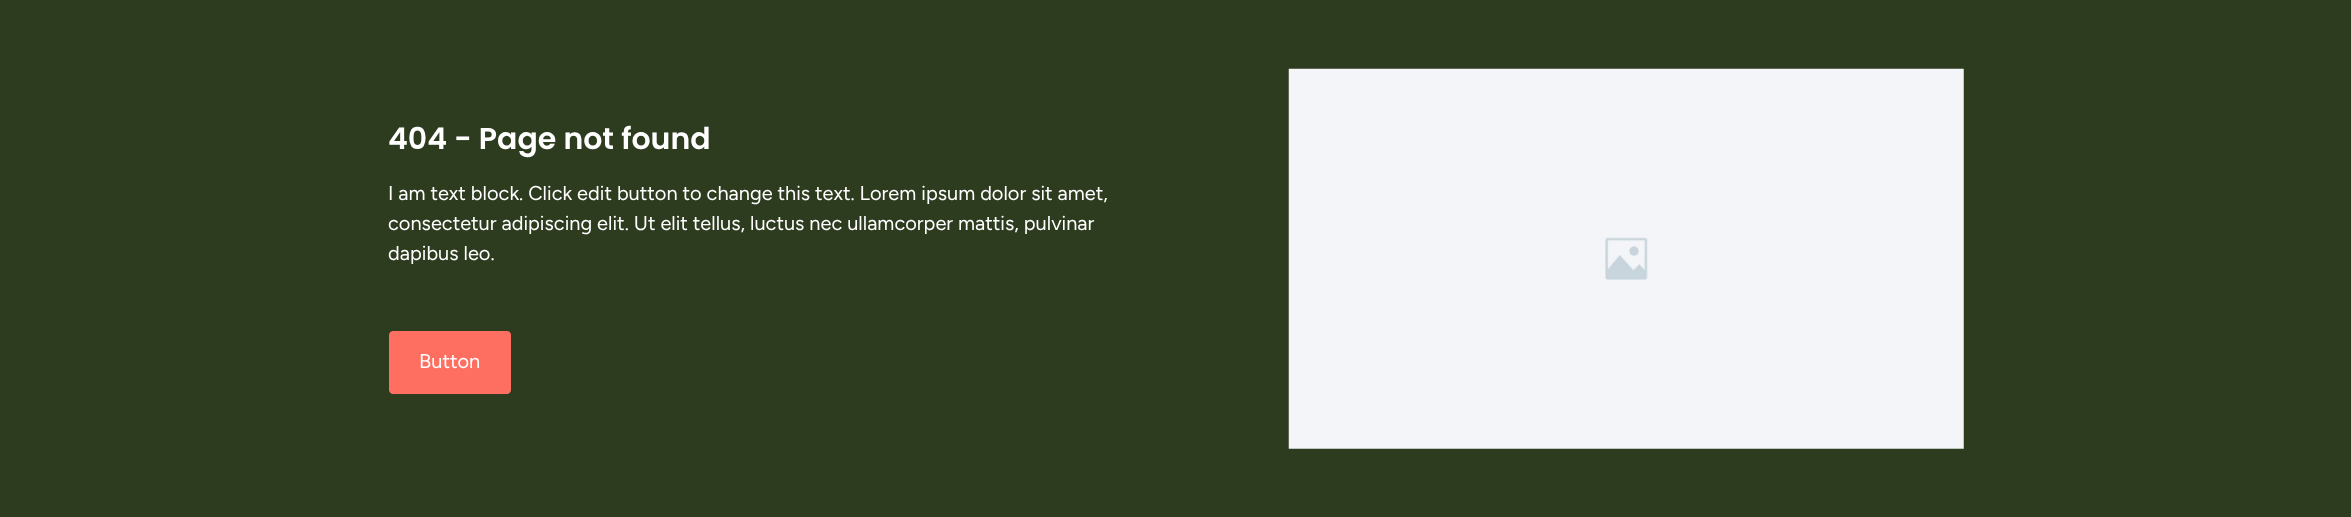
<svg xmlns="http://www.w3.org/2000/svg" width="2351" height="517">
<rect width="100%" height="100%" fill="#2d3b1f"/>
<text x="388" y="149" style="font-family:Poppins;font-size:30px;font-weight:600;fill:#fff">404 - Page not found</text>
<text x="388" y="200" style="font-family:Figtree;font-size:20px;fill:#fff">I am text block. Click edit button to change this text. Lorem ipsum dolor sit amet,</text>
<text x="388" y="230" style="font-family:Figtree;font-size:20px;fill:#fff">consectetur adipiscing elit. Ut elit tellus, luctus nec ullamcorper mattis, pulvinar</text>
<text x="388" y="260" style="font-family:Figtree;font-size:20px;fill:#fff">dapibus leo.</text>
<rect x="389.5" y="331.5" width="121" height="62" rx="3.5" fill="#ff6f61" stroke="#ff6f61"/>
<text x="419" y="368" style="font-family:Figtree;font-size:20px;fill:#fff">Button</text>
<image x="1288" y="68" width="676" height="381" href="media/1.png"/>
</svg>
